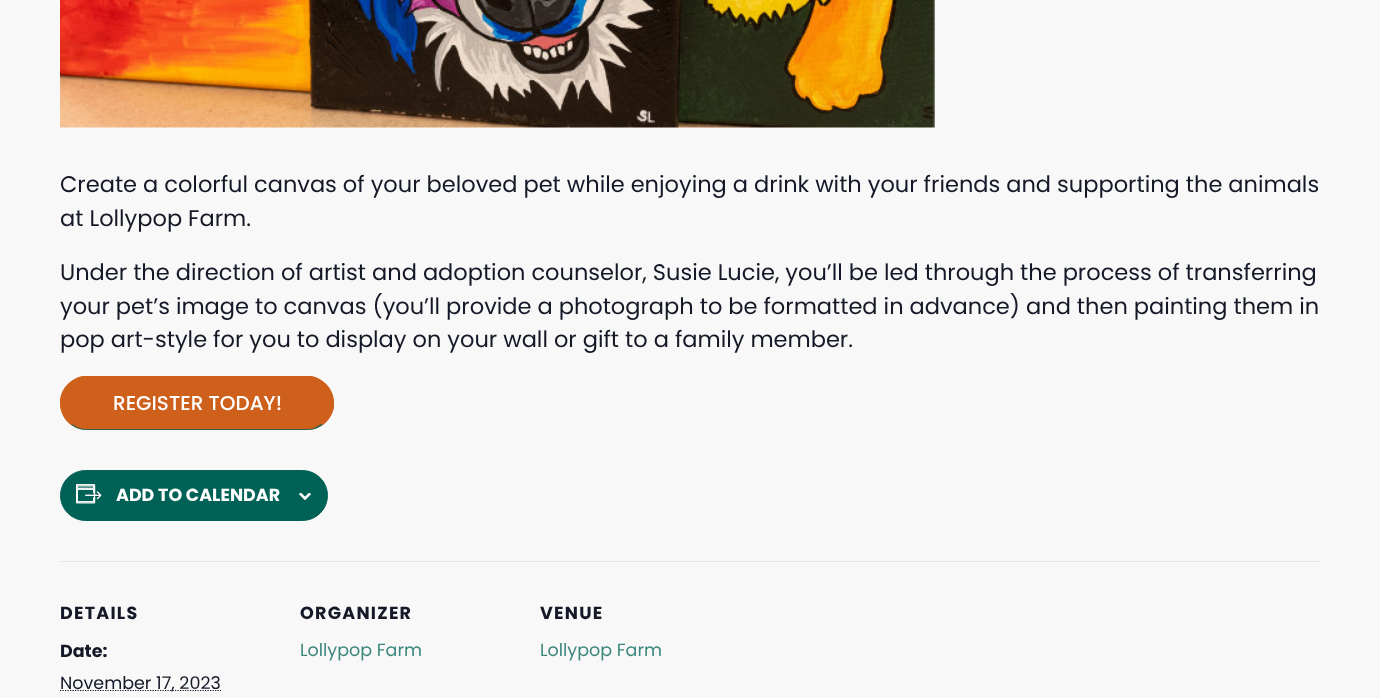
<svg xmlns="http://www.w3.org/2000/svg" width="1380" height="698">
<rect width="100%" height="100%" fill="#f8f8f8"/>
<image x="60" y="0" width="875" height="128" href="media/1.png"/>
<text x="60" y="192" style="font-family:Poppins;font-size:22.5px;fill:#141827">Create a colorful canvas of your beloved pet while enjoying a drink with your friends and supporting the animals</text>
<text x="60" y="226" style="font-family:Poppins;font-size:22.5px;fill:#141827">at Lollypop Farm.</text>
<text x="60" y="280" style="font-family:Poppins;font-size:22.5px;fill:#141827">Under the direction of artist and adoption counselor, Susie Lucie, you’ll be led through the process of transferring</text>
<text x="60" y="314" style="font-family:Poppins;font-size:22.5px;fill:#141827">your pet’s image to canvas (you’ll provide a photograph to be formatted in advance) and then painting them in</text>
<text x="60" y="347" style="font-family:Poppins;font-size:22.5px;fill:#141827">pop art-style for you to display on your wall or gift to a family member.</text>
<rect x="60" y="376" width="274" height="54" rx="27" fill="#ce601b"/>
<path d="M87 379c-7 0-13 3-17 7l-2-2c4-4 9-7 15-8h228c6 1 11 4 15 8l-2 2c-4-4-10-7-17-7z" fill="#ce601b"/>
<path d="M334 407c-1 7-5 13-11 18l-2-1c12-10 13-27 3-38l2-2c7 7 8 14 8 23z" fill="#ce601b"/>
<path d="M87 430h220c6 0 12-2 16-5l-2-1c-4 3-9 5-14 5h-220c-6 0-11-2-15-5l-1 1c4 3 10 5 16 5z" fill="#006156bf"/>
<path d="M71 425c-13-10-15-30-3-41l2 2c-12 10-10 29 2 38z" fill="#ce601b"/>
<text x="113" y="410" style="font-family:Poppins;font-size:20px;font-weight:500;fill:#fff">REGISTER TODAY!</text>
<rect x="60.5" y="470.5" width="267" height="50" rx="25" fill="#006156" stroke="#006156"/>
<image x="76" y="484" width="26" height="20" href="media/2.png"/>
<text x="116" y="501" style="font-family:Poppins;font-size:17.5px;font-weight:bold;fill:#fff">ADD TO CALENDAR</text>
<image x="299" y="493" width="12" height="7" href="media/3.png"/>
<rect x="60" y="561" width="1260" height="1" fill="#e4e4e4"/>
<text x="60" y="619" style="font-family:Poppins;font-size:17.5px;font-weight:bold;letter-spacing:1.25px;fill:#141827">DETAILS</text>
<text x="60" y="657" style="font-family:Poppins;font-size:17.5px;font-weight:bold;fill:#141827">Date:</text>
<path d="M60 690.5h161" fill="none" stroke="#141827" stroke-width="1.2" stroke-dasharray="1.25 1.25"/>
<text x="60" y="689" style="font-family:Poppins;font-size:17.5px;fill:#141827">November 17, 2023</text>
<text x="300" y="619" style="font-family:Poppins;font-size:17.5px;font-weight:bold;letter-spacing:1.25px;fill:#141827">ORGANIZER</text>
<text x="300" y="656" style="font-family:Poppins;font-size:17.5px;fill:#3e877f">Lollypop Farm</text>
<text x="540" y="619" style="font-family:Poppins;font-size:17.5px;font-weight:bold;letter-spacing:1.25px;fill:#141827">VENUE</text>
<text x="540" y="656" style="font-family:Poppins;font-size:17.5px;fill:#3e877f">Lollypop Farm</text>
</svg>
